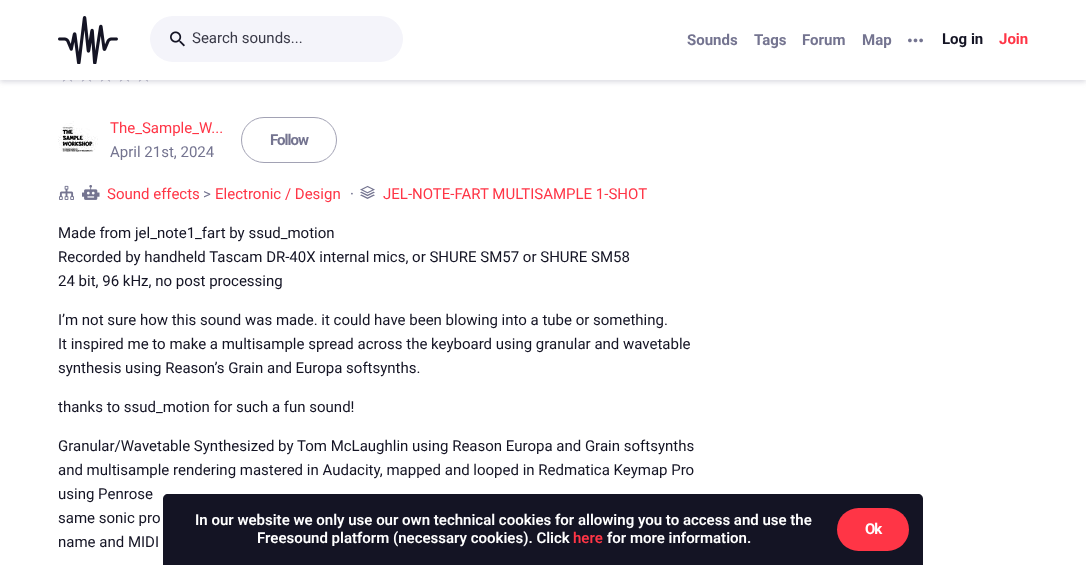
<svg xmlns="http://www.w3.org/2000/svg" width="1086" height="565">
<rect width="100%" height="100%" fill="#fff"/>
<image x="62" y="80" width="11" height="2" href="media/4.png"/>
<image x="81" y="80" width="11" height="2" href="media/4.png"/>
<image x="100" y="80" width="11" height="2" href="media/4.png"/>
<image x="119" y="80" width="11" height="2" href="media/4.png"/>
<image x="138" y="80" width="11" height="2" href="media/4.png"/>
<rect y="2" width="1086" height="80" fill="#a2a2b466" filter="blur(2.5px)"/>
<rect width="1086" height="80" fill="#fff"/>
<image x="58" y="16" width="60" height="48" href="media/1.png"/>
<rect x="150" y="16" width="253" height="46" rx="23" fill="#f4f4fa"/>
<image x="170" y="31" width="15" height="16" href="media/2.png"/>
<text x="192" y="43" style="font-family:Roboto;font-size:15px;fill:#393947">Search sounds...</text>
<text x="687" y="45" style="font-family:Roboto;font-size:15px;font-weight:bold;fill:#747490">Sounds</text>
<text x="754" y="45" style="font-family:Roboto;font-size:15px;font-weight:bold;fill:#747490">Tags</text>
<text x="802" y="45" style="font-family:Roboto;font-size:15px;font-weight:bold;fill:#747490">Forum</text>
<text x="862" y="45" style="font-family:Roboto;font-size:15px;font-weight:bold;fill:#747490">Map</text>
<image x="908" y="38" width="15" height="5" href="media/3.png"/>
<text x="942" y="44" style="font-family:Roboto;font-size:15px;font-weight:bold;fill:#141424">Log in</text>
<text x="999" y="44" style="font-family:Roboto;font-size:15px;font-weight:bold;fill:#ff3546">Join</text>
<image x="58" y="121" width="40" height="31" href="media/5.png"/>
<text x="110" y="133" style="font-family:Roboto;font-size:15px;fill:#ff3546">The_Sample_W...</text>
<text x="110" y="157" style="font-family:Roboto;font-size:15px;fill:#747490">April 21st, 2024</text>
<rect x="241.5" y="117.5" width="95" height="45" rx="22.5" fill="none" stroke="#a2a2b4"/>
<text x="270" y="145" style="font-family:Roboto;font-size:15px;font-weight:bold;letter-spacing:-1px;fill:#747490">Follow</text>
<image x="59" y="185" width="15" height="15" href="media/6.png"/>
<image x="82" y="185" width="18" height="15" href="media/7.png"/>
<text x="107" y="199" style="font-family:Roboto;font-size:15px;fill:#ff3546">Sound effects</text>
<text x="203" y="199" style="font-family:Roboto;font-size:15px;fill:#747490">&gt;</text>
<text x="215" y="199" style="font-family:Roboto;font-size:15px;fill:#ff3546">Electronic / Design</text>
<text x="350" y="199" style="font-family:Roboto;font-size:15px;fill:#747490">·</text>
<image x="360" y="185" width="15" height="14" href="media/8.png"/>
<text x="383" y="199" style="font-family:Roboto;font-size:15px;fill:#ff3546">JEL-NOTE-FART MULTISAMPLE 1-SHOT</text>
<text x="58" y="238" style="font-family:Roboto;font-size:15px;fill:#141424">Made from jel_note1_fart by ssud_motion</text>
<text x="58" y="262" style="font-family:Roboto;font-size:15px;fill:#141424">Recorded by handheld Tascam DR-40X internal mics, or SHURE SM57 or SHURE SM58</text>
<text x="58" y="286" style="font-family:Roboto;font-size:15px;fill:#141424">24 bit, 96 kHz, no post processing</text>
<text x="58" y="325" style="font-family:Roboto;font-size:15px;fill:#141424">I’m not sure how this sound was made. it could have been blowing into a tube or something.</text>
<text x="58" y="349" style="font-family:Roboto;font-size:15px;fill:#141424">It inspired me to make a multisample spread across the keyboard using granular and wavetable</text>
<text x="58" y="373" style="font-family:Roboto;font-size:15px;fill:#141424">synthesis using Reason’s Grain and Europa softsynths.</text>
<text x="58" y="412" style="font-family:Roboto;font-size:15px;fill:#141424">thanks to ssud_motion for such a fun sound!</text>
<text x="58" y="451" style="font-family:Roboto;font-size:15px;fill:#141424">Granular/Wavetable Synthesized by Tom McLaughlin using Reason Europa and Grain softsynths</text>
<text x="58" y="475" style="font-family:Roboto;font-size:15px;fill:#141424">and multisample rendering mastered in Audacity, mapped and looped in Redmatica Keymap Pro</text>
<text x="58" y="499" style="font-family:Roboto;font-size:15px;fill:#141424">using Penrose</text>
<text x="58" y="523" style="font-family:Roboto;font-size:15px;fill:#141424">same sonic pro</text>
<text x="58" y="547" style="font-family:Roboto;font-size:15px;fill:#141424">name and MIDI</text>
<path d="M168 494h750c3 0 5 2 5 5v66h-760v-66c0-3 2-5 5-5z" fill="#141424"/>
<text x="195" y="525" style="font-family:Roboto;font-size:15px;font-weight:600;fill:#fff">In our website we only use our own technical cookies for allowing you to access and use the</text>
<text x="257" y="543" style="font-family:Roboto;font-size:15px;font-weight:600;fill:#fff">Freesound platform (necessary cookies). Click</text>
<text x="573" y="543" style="font-family:Roboto;font-size:15px;font-weight:600;fill:#ff3546">here</text>
<text x="607" y="543" style="font-family:Roboto;font-size:15px;font-weight:600;fill:#fff">for more information.</text>
<rect x="837" y="508" width="72" height="43" rx="21.5" fill="#ff3546"/>
<text x="865" y="534" style="font-family:Roboto;font-size:15px;font-weight:bold;letter-spacing:-1px;fill:#fff">Ok</text>
</svg>
